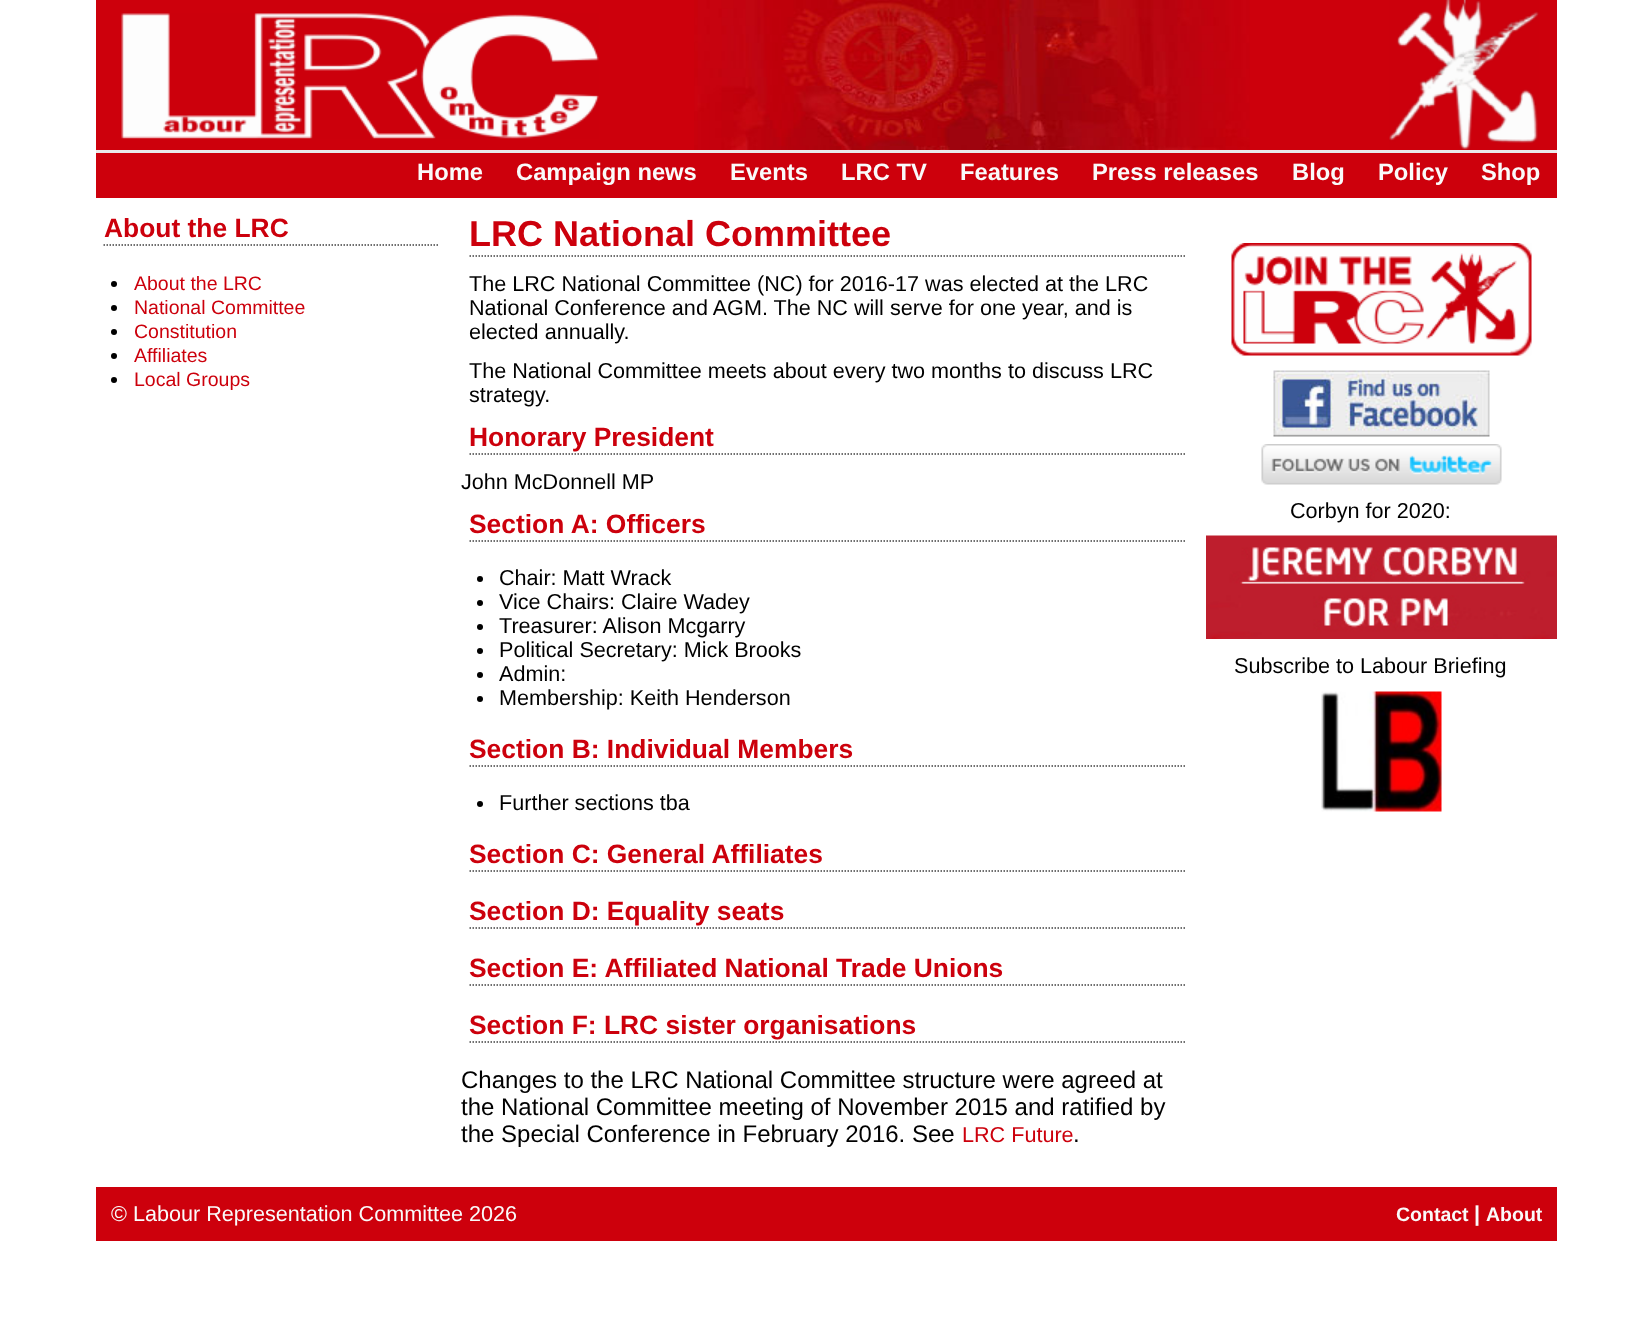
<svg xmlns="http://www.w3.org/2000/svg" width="1652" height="1326">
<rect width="100%" height="100%" fill="#fff"/>
<rect x="96" width="1461" height="198" fill="#cd000c"/>
<image x="121" y="13" width="478" height="126" href="media/1.png"/>
<image x="694" y="0" width="556" height="150" href="media/2.png"/>
<image x="1389" y="0" width="150" height="150" href="media/3.png"/>
<rect x="96" y="150" width="1461" height="3" fill="#eaeaea"/>
<text x="417" y="180" style="font-family:Liberation Sans;font-size:23.75px;font-weight:bold;fill:#fafafa">Home</text>
<text x="516" y="180" style="font-family:Liberation Sans;font-size:23.75px;font-weight:bold;fill:#fafafa">Campaign news</text>
<text x="730" y="180" style="font-family:Liberation Sans;font-size:23.75px;font-weight:bold;fill:#fafafa">Events</text>
<text x="841" y="180" style="font-family:Liberation Sans;font-size:23.75px;font-weight:bold;fill:#fafafa">LRC TV</text>
<text x="960" y="180" style="font-family:Liberation Sans;font-size:23.75px;font-weight:bold;fill:#fafafa">Features</text>
<text x="1092" y="180" style="font-family:Liberation Sans;font-size:23.75px;font-weight:bold;fill:#fafafa">Press releases</text>
<text x="1292" y="180" style="font-family:Liberation Sans;font-size:23.75px;font-weight:bold;fill:#fafafa">Blog</text>
<text x="1378" y="180" style="font-family:Liberation Sans;font-size:23.75px;font-weight:bold;fill:#fafafa">Policy</text>
<text x="1481" y="180" style="font-family:Liberation Sans;font-size:23.75px;font-weight:bold;fill:#fafafa">Shop</text>
<path d="M103.5 245h336" fill="none" stroke="#404040" stroke-width="1.5" stroke-dasharray="1.5 1.5"/>
<text x="104" y="237" style="font-family:Liberation Sans;font-size:26.4px;font-weight:bold;fill:#cc000c">About the LRC</text>
<circle cx="114" cy="284" r="3" fill="#000"/>
<text x="134" y="290" style="font-family:Liberation Sans;font-size:19.5px;fill:#cc000c">About the LRC</text>
<circle cx="114" cy="308" r="3" fill="#000"/>
<text x="134" y="314" style="font-family:Liberation Sans;font-size:19.5px;fill:#cc000c">National Committee</text>
<circle cx="114" cy="332" r="3" fill="#000"/>
<text x="134" y="338" style="font-family:Liberation Sans;font-size:19.5px;fill:#cc000c">Constitution</text>
<circle cx="114" cy="356" r="3" fill="#000"/>
<text x="134" y="362" style="font-family:Liberation Sans;font-size:19.5px;fill:#cc000c">Affiliates</text>
<circle cx="114" cy="380" r="3" fill="#000"/>
<text x="134" y="386" style="font-family:Liberation Sans;font-size:19.5px;fill:#cc000c">Local Groups</text>
<path d="M469.5 256h715.5" fill="none" stroke="#404040" stroke-width="1.5" stroke-dasharray="1.5 1.5"/>
<text x="469" y="246" style="font-family:Liberation Sans;font-size:36px;font-weight:bold;fill:#cc000c">LRC National Committee</text>
<text x="469" y="291" style="font-family:Liberation Sans;font-size:21.6px;fill:#000">The LRC National Committee (NC) for 2016-17 was elected at the LRC</text>
<text x="469" y="315" style="font-family:Liberation Sans;font-size:21.6px;fill:#000">National Conference and AGM. The NC will serve for one year, and is</text>
<text x="469" y="339" style="font-family:Liberation Sans;font-size:21.6px;fill:#000">elected annually.</text>
<text x="469" y="378" style="font-family:Liberation Sans;font-size:21.6px;fill:#000">The National Committee meets about every two months to discuss LRC</text>
<text x="469" y="402" style="font-family:Liberation Sans;font-size:21.6px;fill:#000">strategy.</text>
<path d="M469.5 454h715.5" fill="none" stroke="#404040" stroke-width="1.5" stroke-dasharray="1.5 1.5"/>
<text x="469" y="446" style="font-family:Liberation Sans;font-size:26.4px;font-weight:bold;fill:#cc000c">Honorary President</text>
<text x="461" y="489" style="font-family:Liberation Sans;font-size:21.6px;fill:#000">John McDonnell MP</text>
<path d="M469.5 541h715.5" fill="none" stroke="#404040" stroke-width="1.5" stroke-dasharray="1.5 1.5"/>
<text x="469" y="533" style="font-family:Liberation Sans;font-size:26.4px;font-weight:bold;fill:#cc000c">Section A: Officers</text>
<circle cx="480" cy="579" r="3" fill="#000"/>
<text x="499" y="585" style="font-family:Liberation Sans;font-size:21.6px;fill:#000">Chair: Matt Wrack</text>
<circle cx="480" cy="603" r="3" fill="#000"/>
<text x="499" y="609" style="font-family:Liberation Sans;font-size:21.6px;fill:#000">Vice Chairs: Claire Wadey</text>
<circle cx="480" cy="627" r="3" fill="#000"/>
<text x="499" y="633" style="font-family:Liberation Sans;font-size:21.6px;fill:#000">Treasurer: Alison Mcgarry</text>
<circle cx="480" cy="651" r="3" fill="#000"/>
<text x="499" y="657" style="font-family:Liberation Sans;font-size:21.6px;fill:#000">Political Secretary: Mick Brooks</text>
<circle cx="480" cy="675" r="3" fill="#000"/>
<text x="499" y="681" style="font-family:Liberation Sans;font-size:21.6px;fill:#000">Admin:</text>
<circle cx="480" cy="699" r="3" fill="#000"/>
<text x="499" y="705" style="font-family:Liberation Sans;font-size:21.6px;fill:#000">Membership: Keith Henderson</text>
<path d="M469.5 766h715.5" fill="none" stroke="#404040" stroke-width="1.5" stroke-dasharray="1.5 1.5"/>
<text x="469" y="758" style="font-family:Liberation Sans;font-size:26.4px;font-weight:bold;fill:#cc000c">Section B: Individual Members</text>
<circle cx="480" cy="804" r="3" fill="#000"/>
<text x="499" y="810" style="font-family:Liberation Sans;font-size:21.6px;fill:#000">Further sections tba</text>
<path d="M469.5 871h715.5" fill="none" stroke="#404040" stroke-width="1.5" stroke-dasharray="1.5 1.5"/>
<text x="469" y="863" style="font-family:Liberation Sans;font-size:26.4px;font-weight:bold;fill:#cc000c">Section C: General Affiliates</text>
<path d="M469.5 928h715.5" fill="none" stroke="#404040" stroke-width="1.5" stroke-dasharray="1.5 1.5"/>
<text x="469" y="920" style="font-family:Liberation Sans;font-size:26.4px;font-weight:bold;fill:#cc000c">Section D: Equality seats</text>
<path d="M469.5 985h715.5" fill="none" stroke="#404040" stroke-width="1.5" stroke-dasharray="1.5 1.5"/>
<text x="469" y="977" style="font-family:Liberation Sans;font-size:26.4px;font-weight:bold;fill:#cc000c">Section E: Affiliated National Trade Unions</text>
<path d="M469.5 1042h715.5" fill="none" stroke="#404040" stroke-width="1.5" stroke-dasharray="1.5 1.5"/>
<text x="469" y="1034" style="font-family:Liberation Sans;font-size:26.4px;font-weight:bold;fill:#cc000c">Section F: LRC sister organisations</text>
<text x="461" y="1088" style="font-family:Liberation Sans;font-size:24px;fill:#000">Changes to the LRC National Committee structure were agreed at</text>
<text x="461" y="1115" style="font-family:Liberation Sans;font-size:24px;fill:#000">the National Committee meeting of November 2015 and ratified by</text>
<text x="461" y="1142" style="font-family:Liberation Sans;font-size:24px;fill:#000">the Special Conference in February 2016. See</text>
<text x="962" y="1142" style="font-family:Liberation Sans;font-size:21.6px;fill:#cc000c">LRC Future</text>
<text x="1073" y="1142" style="font-family:Liberation Sans;font-size:24px;fill:#000">.</text>
<image x="1231" y="243" width="301" height="113" href="media/4.png"/>
<image x="1273" y="370" width="217" height="67" href="media/5.png"/>
<image x="1261" y="444" width="241" height="41" href="media/6.png"/>
<text x="1290" y="518" style="font-family:Liberation Sans;font-size:21.6px;fill:#000">Corbyn for 2020:</text>
<image x="1206" y="535" width="351" height="104" href="media/7.png"/>
<text x="1234" y="673" style="font-family:Liberation Sans;font-size:21.6px;fill:#000">Subscribe to Labour Briefing</text>
<image x="1321" y="691" width="121" height="121" href="media/8.png"/>
<rect x="96" y="1187" width="1461" height="54" fill="#cd000c"/>
<text x="111" y="1221" style="font-family:Liberation Sans;font-size:21.6px;fill:#fafafa">© Labour Representation Committee 2026</text>
<text x="1396" y="1221" style="font-family:Liberation Sans;font-size:19.5px;font-weight:bold;fill:#fafafa">Contact</text>
<text x="1474" y="1221" style="font-family:Liberation Sans;font-size:21.6px;font-weight:bold;fill:#fafafa">|</text>
<text x="1486" y="1221" style="font-family:Liberation Sans;font-size:19.5px;font-weight:bold;fill:#fafafa">About</text>
</svg>
